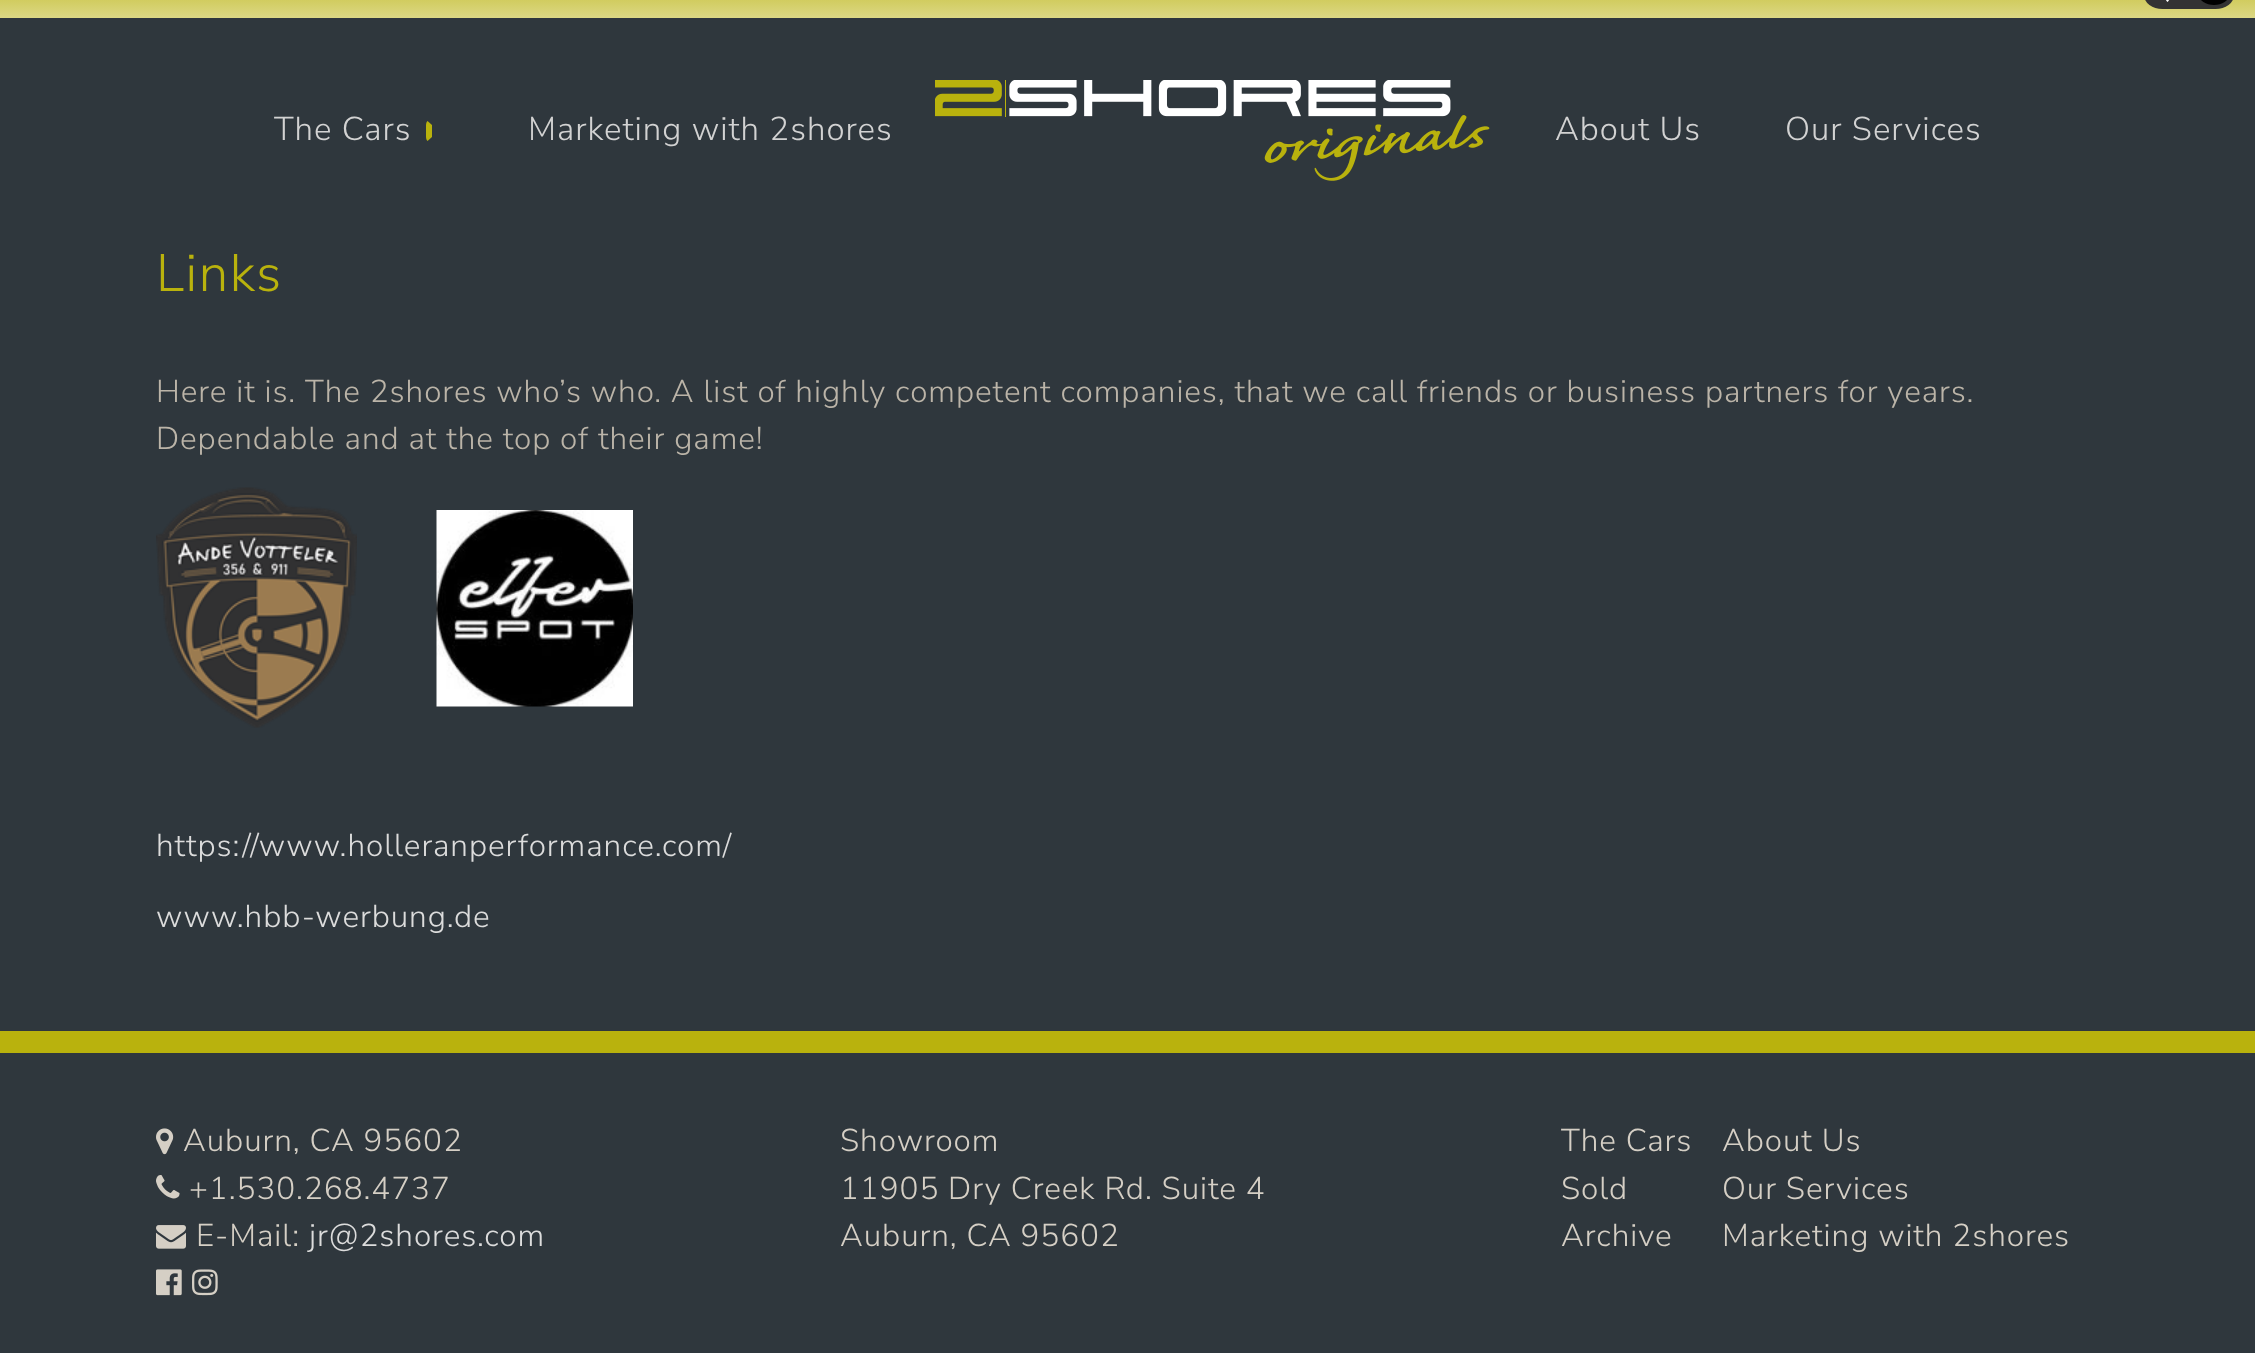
<svg xmlns="http://www.w3.org/2000/svg" width="2255" height="1353">
<defs>
<linearGradient id="g1" gradientUnits="userSpaceOnUse" x1="1128" y1="-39" x2="1128" y2="18"><stop offset="0" stop-color="#b9b20d"/><stop offset="1" stop-color="#dcd885"/></linearGradient>
</defs>
<rect width="100%" height="100%" fill="#2f373d"/>
<rect width="2255" height="18" fill="url(#g1)"/>
<rect x="2144" y="-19" width="90" height="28" rx="18.5" fill="#333"/>
<image x="2166" y="0" width="3" height="2" href="media/1.png"/>
<rect x="2199" y="-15" width="30" height="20" rx="15" fill="#000"/>
<text x="274" y="140" style="font-family:Nunito Sans;font-size:33px;font-weight:200;letter-spacing:1px;fill:#d2d2d2">The Cars</text>
<path d="M426 137v-12c0-1.5 .5-3 1.5-4l4.5 4v12l-4.5 4c-1-1-1.5-2.5-1.5-4z" fill="#b9b20d"/>
<text x="528" y="140" style="font-family:Nunito Sans;font-size:33px;font-weight:200;letter-spacing:1px;fill:#d2d2d2">Marketing with 2shores</text>
<image x="935" y="80" width="555" height="101" href="media/2.png"/>
<text x="1555" y="140" style="font-family:Nunito Sans;font-size:33px;font-weight:200;letter-spacing:1px;fill:#d2d2d2">About Us</text>
<text x="1785" y="140" style="font-family:Nunito Sans;font-size:33px;font-weight:200;letter-spacing:1px;fill:#d2d2d2">Our Services</text>
<text x="156" y="291" style="font-family:Nunito Sans;font-size:52.5px;font-weight:200;letter-spacing:1.5px;fill:#b9b20d">Links</text>
<text x="156" y="402" style="font-family:Nunito Sans;font-size:31.5px;font-weight:200;letter-spacing:0.95px;fill:#bbb4a8">Here it is. The 2shores who’s who. A list of highly competent companies, that we call friends or business partners for years.</text>
<text x="156" y="449" style="font-family:Nunito Sans;font-size:31.5px;font-weight:200;letter-spacing:0.95px;fill:#bbb4a8">Dependable and at the top of their game!</text>
<image x="156" y="487" width="201" height="241" href="media/3.png"/>
<image x="436" y="510" width="197" height="197" href="media/4.png"/>
<text x="156" y="856" style="font-family:Nunito Sans;font-size:31.5px;font-weight:200;letter-spacing:0.95px;fill:#dcdcdc">https://www.holleranperformance.com/</text>
<text x="156" y="927" style="font-family:Nunito Sans;font-size:31.5px;font-weight:200;letter-spacing:0.95px;fill:#dcdcdc">www.hbb-werbung.de</text>
<rect y="1031" width="2255" height="22" fill="#b9b20d"/>
<image x="156" y="1128" width="18" height="27" href="media/5.png"/>
<text x="183" y="1151" style="font-family:Nunito Sans;font-size:31.5px;font-weight:200;letter-spacing:0.95px;fill:#d5cfc5">Auburn, CA 95602</text>
<image x="156" y="1175" width="24" height="24" href="media/6.png"/>
<text x="189" y="1199" style="font-family:Nunito Sans;font-size:31.5px;font-weight:200;letter-spacing:0.95px;fill:#d5cfc5">+1.530.268.4737</text>
<image x="156" y="1225" width="30" height="24" href="media/7.png"/>
<text x="196" y="1246" style="font-family:Nunito Sans;font-size:31.5px;font-weight:200;letter-spacing:0.95px;fill:#d5cfc5">E-Mail:</text>
<text x="309" y="1246" style="font-family:Nunito Sans;font-size:31.5px;font-weight:200;letter-spacing:0.95px;fill:#dcdcdc">jr@2shores.com</text>
<image x="156" y="1269" width="26" height="27" href="media/8.png"/>
<image x="192" y="1269" width="26" height="27" href="media/9.png"/>
<text x="840" y="1151" style="font-family:Nunito Sans;font-size:31.5px;font-weight:200;letter-spacing:0.95px;fill:#d5cfc5">Showroom</text>
<text x="840" y="1199" style="font-family:Nunito Sans;font-size:31.5px;font-weight:200;letter-spacing:0.95px;fill:#d5cfc5">11905 Dry Creek Rd. Suite 4</text>
<text x="840" y="1246" style="font-family:Nunito Sans;font-size:31.5px;font-weight:200;letter-spacing:0.95px;fill:#d5cfc5">Auburn, CA 95602</text>
<text x="1561" y="1151" style="font-family:Nunito Sans;font-size:31.5px;font-weight:200;letter-spacing:0.95px;fill:#d5cfc5">The Cars</text>
<text x="1722" y="1151" style="font-family:Nunito Sans;font-size:31.5px;font-weight:200;letter-spacing:0.95px;fill:#d5cfc5">About Us</text>
<text x="1561" y="1199" style="font-family:Nunito Sans;font-size:31.5px;font-weight:200;letter-spacing:0.95px;fill:#d5cfc5">Sold</text>
<text x="1722" y="1199" style="font-family:Nunito Sans;font-size:31.5px;font-weight:200;letter-spacing:0.95px;fill:#d5cfc5">Our Services</text>
<text x="1561" y="1246" style="font-family:Nunito Sans;font-size:31.5px;font-weight:200;letter-spacing:0.95px;fill:#d5cfc5">Archive</text>
<text x="1722" y="1246" style="font-family:Nunito Sans;font-size:31.5px;font-weight:200;letter-spacing:0.95px;fill:#d5cfc5">Marketing with 2shores</text>
</svg>
